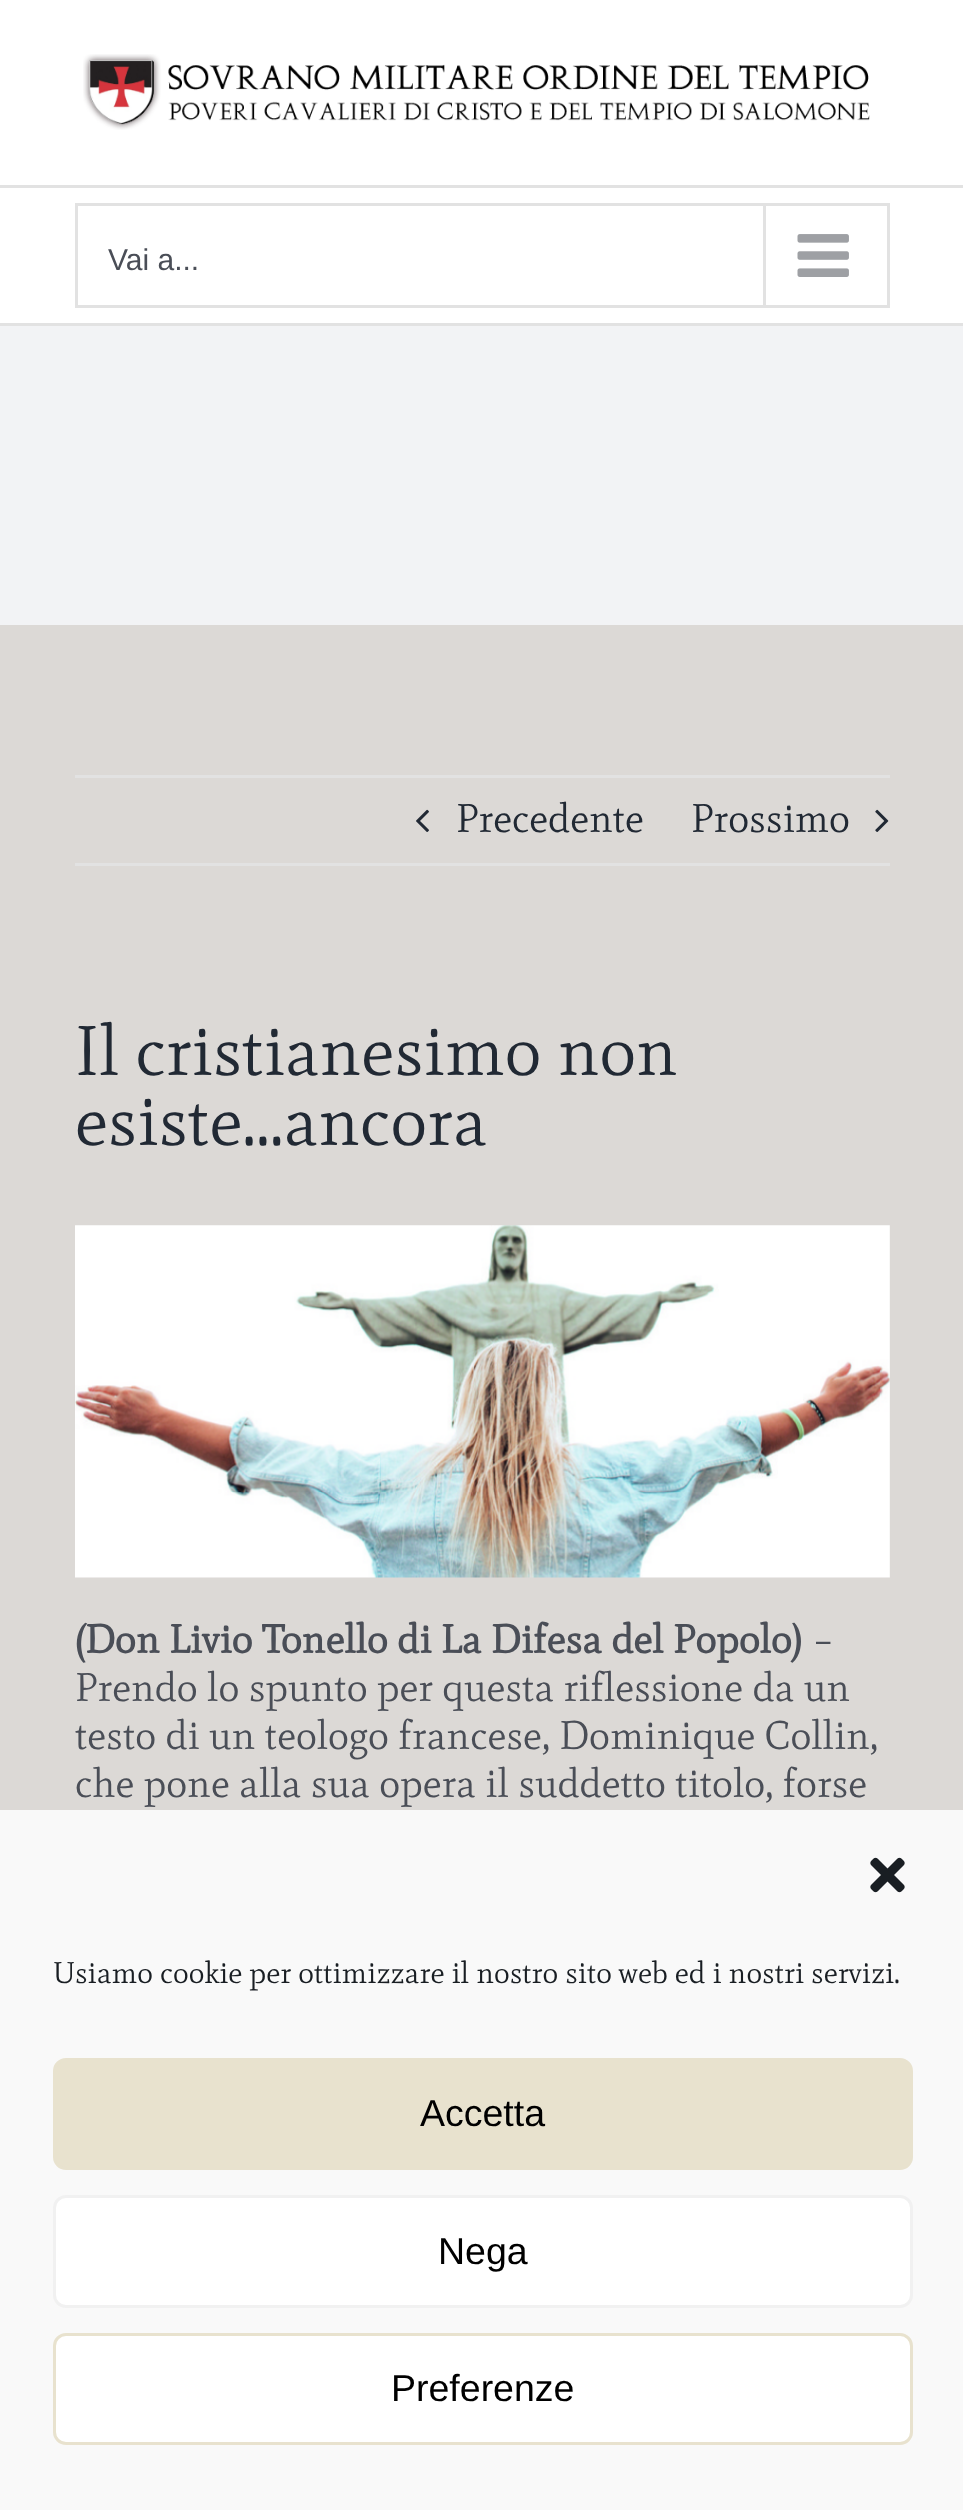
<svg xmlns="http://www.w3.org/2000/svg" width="963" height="2510">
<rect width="100%" height="100%" fill="#f2f3f5"/>
<rect width="963" height="185" fill="#fff"/>
<rect y="185" width="963" height="3" fill="#e2e2e2"/>
<image x="83" y="54" width="787" height="76" href="media/1.png"/>
<rect y="188" width="963" height="135" fill="#fff"/>
<rect y="323" width="963" height="3" fill="#e2e2e2"/>
<rect x="76.5" y="204.5" width="812" height="102" fill="none" stroke="#e2e2e2" stroke-width="3"/>
<text x="108" y="270" style="font-family:Liberation Sans;font-size:30px;fill:#4a4e57">Vai a...</text>
<rect x="763" y="205" width="3" height="100" fill="#e2e2e2"/>
<image x="797" y="234" width="52" height="43" href="media/2.png"/>
<rect y="625" width="963" height="1185" fill="#dcd9d6"/>
<rect x="75" y="775" width="815" height="3" fill="#e2e2e2"/>
<rect x="75" y="863" width="815" height="3" fill="#e2e2e2"/>
<image x="416" y="809" width="13" height="23" href="media/3.png"/>
<text x="456" y="832" style="font-family:Mate;font-size:40px;fill:#212934">Precedente</text>
<text x="691" y="832" style="font-family:Mate;font-size:40px;fill:#212934">Prossimo</text>
<image x="875" y="809" width="14" height="23" href="media/4.png"/>
<text x="75" y="1075" style="font-family:Mate;font-size:70px;fill:#212934">Il cristianesimo non</text>
<text x="75" y="1145" style="font-family:Mate;font-size:70px;fill:#212934">esiste…ancora</text>
<image x="75" y="1225" width="815" height="353" href="media/5.png"/>
<text x="75" y="1653" style="font-family:Mate;font-size:40px;font-weight:bold;fill:#4a4e57">(Don Livio Tonello di La Difesa del Popolo)</text>
<text x="811" y="1653" style="font-family:Mate;font-size:40px;fill:#4a4e57">–</text>
<text x="75" y="1701" style="font-family:Mate;font-size:40px;fill:#4a4e57">Prendo lo spunto per questa riflessione da un</text>
<text x="75" y="1749" style="font-family:Mate;font-size:40px;fill:#4a4e57">testo di un teologo francese, Dominique Collin,</text>
<text x="75" y="1797" style="font-family:Mate;font-size:40px;fill:#4a4e57">che pone alla sua opera il suddetto titolo, forse</text>
<rect y="1810" width="963" height="700" fill="#f9f9f9"/>
<image x="870" y="1857" width="35" height="36" href="media/6.png"/>
<text x="53" y="1983" style="font-family:Mate;font-size:30px;fill:#191e23">Usiamo cookie per ottimizzare il nostro sito web ed i nostri servizi.</text>
<rect x="54.5" y="2059.5" width="857" height="109" rx="11.5" fill="#e8e2ce" stroke="#e8e2ce" stroke-width="3"/>
<text x="420" y="2126" style="font-family:Liberation Sans;font-size:37.5px;fill:#000">Accetta</text>
<rect x="54.5" y="2196.5" width="857" height="110" rx="11.5" fill="#fff" stroke="#f1f1f1" stroke-width="3"/>
<text x="438" y="2264" style="font-family:Liberation Sans;font-size:37.5px;fill:#000">Nega</text>
<rect x="54.5" y="2334.5" width="857" height="109" rx="11.5" fill="#fff" stroke="#e8e2ce" stroke-width="3"/>
<text x="391" y="2401" style="font-family:Liberation Sans;font-size:37.5px;fill:#000">Preferenze</text>
</svg>
